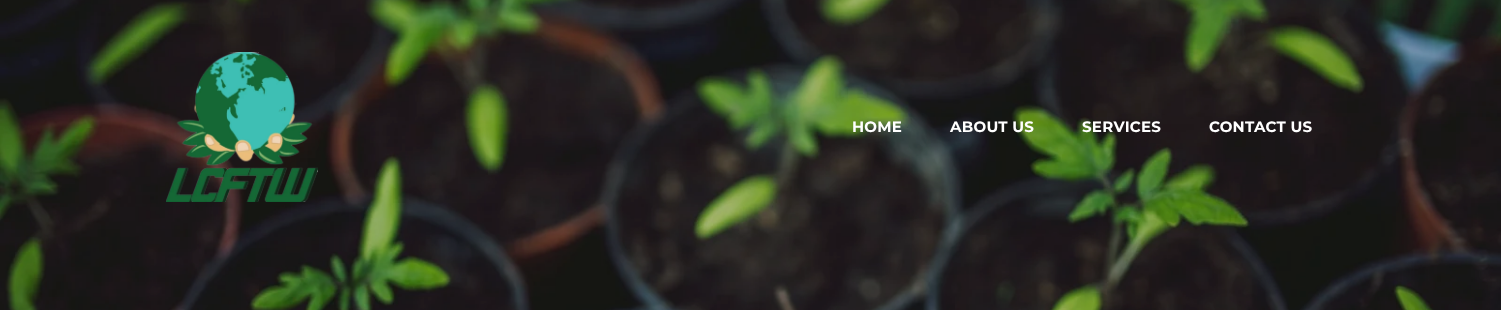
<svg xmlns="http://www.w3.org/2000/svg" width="1501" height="310">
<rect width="100%" height="100%" fill="#fff"/>
<image x="0" y="0" width="1501" height="310" href="media/1.png"/>
<image x="166" y="52" width="152" height="150" href="media/2.png"/>
<text x="852" y="132" style="font-family:Montserrat;font-size:15px;font-weight:bold;letter-spacing:0.25px;fill:#fff">HOME</text>
<text x="950" y="132" style="font-family:Montserrat;font-size:15px;font-weight:bold;letter-spacing:0.25px;fill:#fff">ABOUT US</text>
<text x="1082" y="132" style="font-family:Montserrat;font-size:15px;font-weight:bold;letter-spacing:0.25px;fill:#fff">SERVICES</text>
<text x="1209" y="132" style="font-family:Montserrat;font-size:15px;font-weight:bold;letter-spacing:0.25px;fill:#fff">CONTACT US</text>
</svg>
